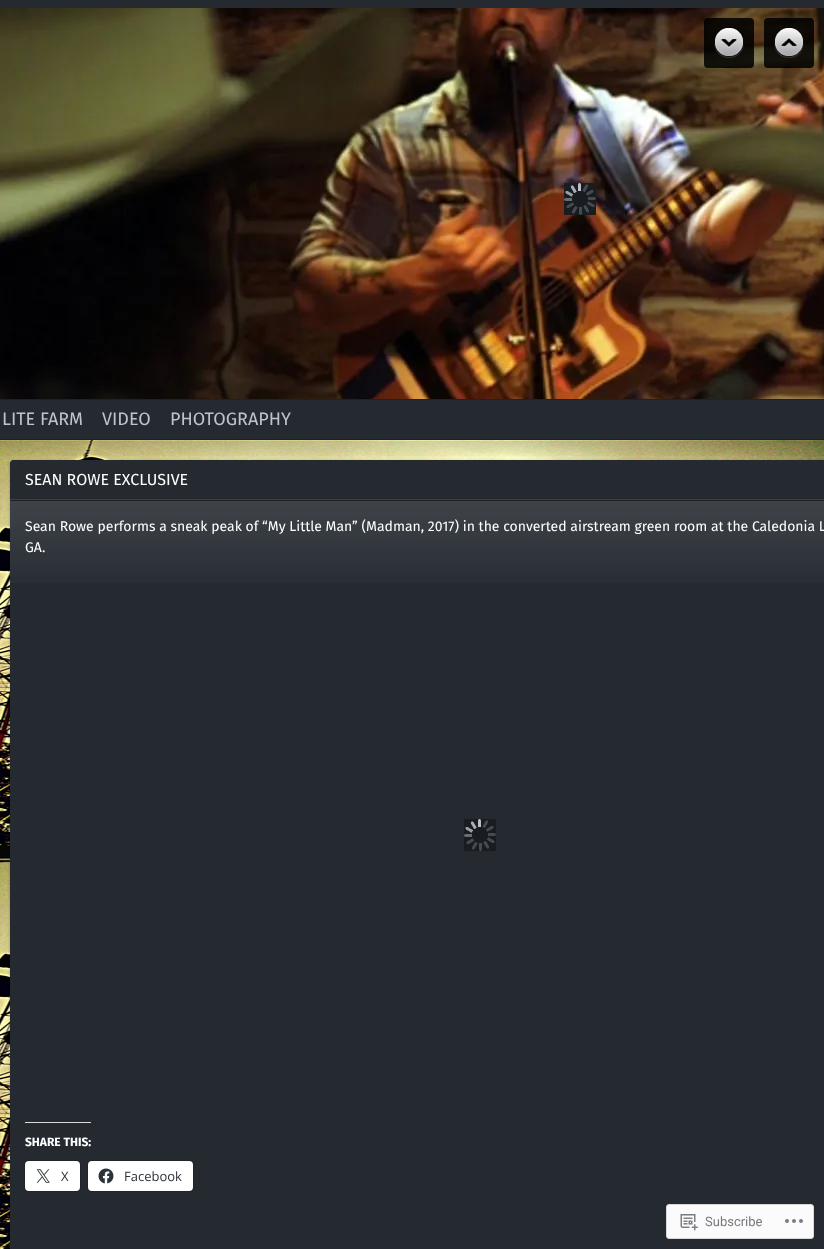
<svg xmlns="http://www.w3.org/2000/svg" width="824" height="1249">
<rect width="100%" height="100%" fill="#fff"/>
<image x="0" y="440" width="824" height="809" href="media/1.png"/>
<image x="0" y="441" width="824" height="15" href="media/2.png"/>
<rect width="824" height="8" fill="#252a31"/>
<image x="0" y="8" width="824" height="391" href="media/3.png"/>
<image x="564" y="183" width="32" height="32" href="media/4.png"/>
<rect x="704" y="18" width="50" height="50" rx="4" fill="#000000d9"/>
<image x="714" y="27" width="30" height="41" href="media/5.png"/>
<rect x="764" y="18" width="50" height="50" rx="4" fill="#000000d9"/>
<image x="774" y="27" width="30" height="41" href="media/6.png"/>
<rect y="400" width="824" height="39" fill="#252a31"/>
<rect y="399" width="824" height="1" fill="#1e2227"/>
<rect y="439" width="824" height="1" fill="#1e2227"/>
<text x="2" y="425" style="font-family:Fira Sans;font-size:18px;fill:#bec4cc">LITE FARM</text>
<text x="102" y="425" style="font-family:Fira Sans;font-size:18px;fill:#bec4cc">VIDEO</text>
<text x="170" y="425" style="font-family:Fira Sans;font-size:18px;fill:#bec4cc">PHOTOGRAPHY</text>
<rect x="10" y="461" width="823" height="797" rx="4" fill="#00000040" filter="blur(1.5px)"/>
<rect x="10" y="460" width="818" height="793" rx="4" fill="#252a31"/>
<path d="M14 460h810c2 0 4 2 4 4v36h-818v-36c0-2 2-4 4-4z" fill="#252a31"/>
<rect x="10" y="499" width="814" height="1" fill="#3b3f46"/>
<text x="25" y="485" style="font-family:Fira Sans;font-size:16px;fill:#fff">SEAN ROWE EXCLUSIVE</text>
<image x="10" y="501" width="814" height="82" href="media/7.png"/>
<rect x="10" y="500" width="814" height="1" fill="#1e2227"/>
<text x="25" y="531" style="font-family:Fira Sans;font-size:14px;fill:#fff">Sean Rowe performs a sneak peak of “My Little Man” (Madman, 2017) in the converted airstream green room at the Caledonia L</text>
<text x="25" y="552" style="font-family:Fira Sans;font-size:14px;fill:#fff">GA.</text>
<image x="464" y="819" width="32" height="32" href="media/4.png"/>
<rect x="25" y="1122" width="66" height="1" fill="#dcdcde"/>
<text x="25" y="1146" style="font-family:Fira Sans;font-size:12px;font-weight:bold;fill:#fff">SHARE THIS:</text>
<rect x="24.5" y="1160.5" width="56" height="31" rx="4.5" fill="none" stroke="#21252b"/>
<rect x="25" y="1161" width="55" height="30" rx="4" fill="#fff"/>
<image x="36" y="1169" width="14" height="14" href="media/8.png"/>
<text x="61" y="1181" style="font-family:Open Sans;font-size:13px;fill:#2c3338">X</text>
<rect x="87.5" y="1160.5" width="106" height="31" rx="4.5" fill="none" stroke="#21252b"/>
<rect x="88" y="1161" width="105" height="30" rx="4" fill="#fff"/>
<image x="98" y="1168" width="16" height="16" href="media/9.png"/>
<text x="124" y="1181" style="font-family:Open Sans;font-size:13px;fill:#2c3338">Facebook</text>
<rect x="666.5" y="1204.5" width="147" height="34" rx="2.5" fill="#fbfbfb" stroke="#d8d8db"/>
<image x="680" y="1214" width="18" height="17" href="media/10.png"/>
<text x="705" y="1226" style="font-family:Roboto;font-size:13px;fill:#767a80">Subscribe</text>
<image x="785" y="1219" width="18" height="4" href="media/11.png"/>
</svg>
